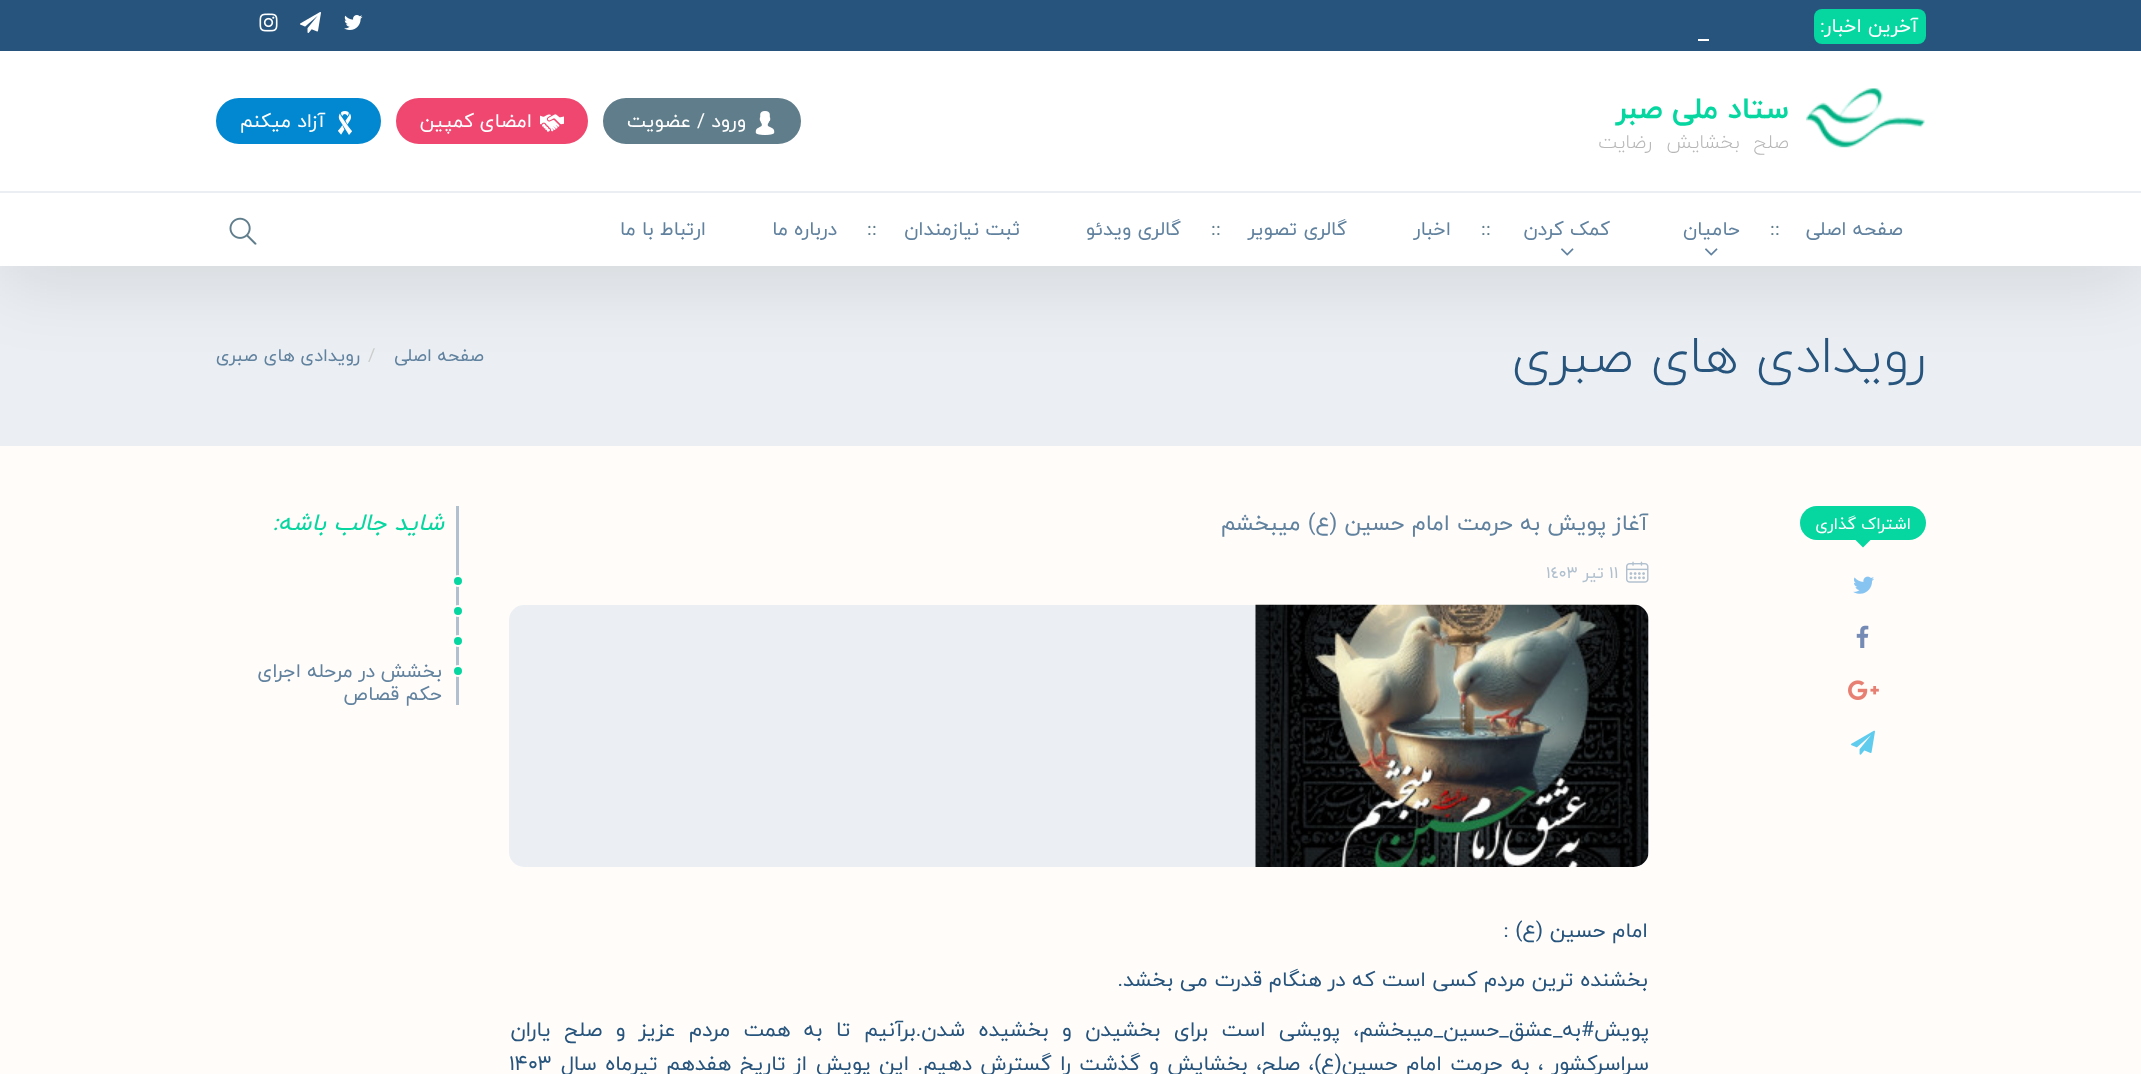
<svg xmlns="http://www.w3.org/2000/svg" width="2141" height="1074">
<rect width="100%" height="100%" fill="#fffcf9"/>
<rect y="266" width="2141" height="180" fill="#ebeff3"/>
<rect y="15" width="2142" height="266" fill="#0000001a" filter="blur(37.5px)"/>
<rect width="2141" height="51" fill="#26547c"/>
<rect x="1814" y="9" width="112" height="35" rx="8" fill="#06d6a0"/>
<text x="1918" y="32" style="font-family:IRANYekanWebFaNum;font-size:19.5px;direction:rtl;fill:#fff">آخرین اخبار:</text>
<rect x="1698" y="39" width="11" height="2" fill="#fff"/>
<image x="344" y="15" width="19" height="15" href="media/1.png"/>
<image x="300" y="12" width="21" height="21" href="media/2.png"/>
<image x="259" y="13" width="19" height="19" href="media/3.png"/>
<rect y="51" width="2141" height="215" fill="#fff"/>
<rect y="191" width="2141" height="2" fill="#ebeff3"/>
<image x="1806" y="88" width="119" height="60" href="media/4.png"/>
<text x="1789" y="118" style="font-family:IRANYekanWebFaNum;font-size:30px;font-weight:bold;direction:rtl;fill:#06d6a0">ستاد ملی صبر</text>
<text x="1789" y="148" style="font-family:IRANYekanWebFaNum;font-size:19.5px;font-weight:300;direction:rtl;fill:#b7b7b7">صلح</text>
<text x="1740" y="148" style="font-family:IRANYekanWebFaNum;font-size:19.5px;font-weight:300;direction:rtl;fill:#b7b7b7">بخشایش</text>
<text x="1652" y="148" style="font-family:IRANYekanWebFaNum;font-size:19.5px;font-weight:300;direction:rtl;fill:#b7b7b7">رضایت</text>
<rect x="604" y="99" width="196" height="44" rx="22" fill="#607d8b" stroke="#607d8b" stroke-width="2"/>
<image x="755" y="111" width="20" height="24" href="media/5.png"/>
<text x="746" y="127" style="font-family:IRANYekanWebFaNum;font-size:19.5px;direction:rtl;fill:#fff">ورود / عضویت</text>
<rect x="397" y="99" width="190" height="44" rx="22" fill="#ef476f" stroke="#ef476f" stroke-width="2"/>
<image x="540" y="114" width="24" height="18" href="media/6.png"/>
<text x="532" y="127" style="font-family:IRANYekanWebFaNum;font-size:19.5px;direction:rtl;fill:#fff">امضای</text>
<text x="474" y="127" style="font-family:IRANYekanWebFaNum;font-size:19.5px;direction:rtl;fill:#fff">کمپین</text>
<rect x="217" y="99" width="163" height="44" rx="22" fill="#0288d1" stroke="#0288d1" stroke-width="2"/>
<image x="338" y="111" width="14" height="24" href="media/7.png"/>
<text x="325" y="127" style="font-family:IRANYekanWebFaNum;font-size:19.5px;direction:rtl;fill:#fff">آزاد</text>
<text x="291" y="127" style="font-family:IRANYekanWebFaNum;font-size:19.5px;direction:rtl;fill:#fff">میکنم</text>
<text x="1903" y="235" style="font-family:IRANYekanWebFaNum;font-size:19.5px;direction:rtl;fill:#61829f">صفحه اصلی</text>
<text x="1770" y="235" style="font-family:IRANYekanWebFaNum;font-size:19.5px;letter-spacing:-3px;fill:#607d8b">: :</text>
<text x="1740" y="235" style="font-family:IRANYekanWebFaNum;font-size:19.5px;direction:rtl;fill:#61829f">حامیان</text>
<image x="1705" y="248" width="13" height="8" href="media/8.png"/>
<text x="1610" y="235" style="font-family:IRANYekanWebFaNum;font-size:19.5px;direction:rtl;fill:#61829f">کمک کردن</text>
<image x="1561" y="248" width="13" height="8" href="media/8.png"/>
<text x="1481" y="235" style="font-family:IRANYekanWebFaNum;font-size:19.5px;letter-spacing:-3px;fill:#607d8b">: :</text>
<text x="1451" y="235" style="font-family:IRANYekanWebFaNum;font-size:19.5px;direction:rtl;fill:#61829f">اخبار</text>
<text x="1347" y="235" style="font-family:IRANYekanWebFaNum;font-size:19.5px;direction:rtl;fill:#61829f">گالری تصویر</text>
<text x="1211" y="235" style="font-family:IRANYekanWebFaNum;font-size:19.5px;letter-spacing:-3px;fill:#607d8b">: :</text>
<text x="1181" y="235" style="font-family:IRANYekanWebFaNum;font-size:19.5px;direction:rtl;fill:#61829f">گالری ویدئو</text>
<text x="1020" y="235" style="font-family:IRANYekanWebFaNum;font-size:19.5px;direction:rtl;fill:#61829f">ثبت نیازمندان</text>
<text x="867" y="235" style="font-family:IRANYekanWebFaNum;font-size:19.5px;letter-spacing:-3px;fill:#607d8b">: :</text>
<text x="837" y="235" style="font-family:IRANYekanWebFaNum;font-size:19.5px;direction:rtl;fill:#61829f">درباره ما</text>
<text x="706" y="235" style="font-family:IRANYekanWebFaNum;font-size:19.5px;direction:rtl;fill:#61829f">ارتباط با ما</text>
<image x="229" y="217" width="28" height="28" href="media/9.png"/>
<text x="1926" y="372" style="font-family:IRANYekanWebFaNum;font-size:52.5px;font-weight:300;direction:rtl;fill:#26547c">رویدادی های صبری</text>
<text x="484" y="361" style="font-family:IRANYekanWebFaNum;font-size:18px;direction:rtl;fill:#61829f">صفحه اصلی</text>
<text x="368" y="361" style="font-family:IRANYekanWebFaNum;font-size:18px;fill:#ccc">/</text>
<text x="360" y="361" style="font-family:IRANYekanWebFaNum;font-size:18px;direction:rtl;fill:#61829f">رویدادی های صبری</text>
<rect x="1800" y="506" width="126" height="34" rx="17" fill="#06d6a0"/>
<text x="1911" y="529" style="font-family:IRANYekanWebFaNum;font-size:16.5px;direction:rtl;fill:#fff">اشتراک گذاری</text>
<path d="M1855.5 540h15l-7.5 7.5z" fill="#06d6a0"/>
<image x="1853" y="576" width="21" height="18" href="media/10.png"/>
<image x="1856" y="625" width="13" height="23" href="media/11.png"/>
<image x="1848" y="680" width="31" height="20" href="media/12.png"/>
<image x="1851" y="730" width="24" height="25" href="media/13.png"/>
<text x="1648" y="530" style="font-family:IRANYekanWebFaNum;font-size:22.5px;direction:rtl;fill:#61829f">آغاز پویش به حرمت امام حسین (ع) میبخشم</text>
<image x="1626" y="561" width="23" height="22" href="media/14.png"/>
<text x="1609" y="578" style="font-family:IRANYekanWebFaNum;font-size:16.5px;fill:#b0c0cf">١١</text>
<text x="1604" y="578" style="font-family:IRANYekanWebFaNum;font-size:16.5px;direction:rtl;fill:#b0c0cf">تير</text>
<text x="1546" y="578" style="font-family:IRANYekanWebFaNum;font-size:16.5px;fill:#b0c0cf">١٤٠٣</text>
<rect x="509" y="605" width="1140" height="262" rx="15" fill="#ebeff3"/>
<image x="1255" y="604" width="394" height="263" href="media/15.png"/>
<text x="1648" y="937" style="font-family:IRANYekanWebFaNum;font-size:21px;direction:rtl;fill:#26547c">امام حسین (ع) :</text>
<text x="1648" y="986" style="font-family:IRANYekanWebFaNum;font-size:21px;direction:rtl;fill:#26547c">بخشنده ترین مردم کسی است که در هنگام قدرت می بخشد.</text>
<text x="1649" y="1036" word-spacing="6.75" style="font-family:IRANYekanWebFaNum;font-size:21px;direction:rtl;fill:#26547c">پویش#به_عشق_حسین_میبخشم، پویشی است برای بخشیدن و بخشیده شدن.برآنیم تا به همت مردم عزیز و صلح یاران</text>
<text x="1649" y="1070" word-spacing="1.75" style="font-family:IRANYekanWebFaNum;font-size:21px;direction:rtl;fill:#26547c">سراسرکشور ، به حرمت امام حسین(ع)، صلح، بخشایش و گذشت را گسترش دهیم. این پویش از تاریخ هفدهم تیرماه سال</text>
<text x="509" y="1070" style="font-family:IRANYekanWebFaNum;font-size:21px;fill:#26547c">۱۴۰۳</text>
<rect x="456" y="506" width="3" height="199" fill="#b0c0cf"/>
<text x="444" y="530" style="font-family:IRANYekanWebFaNum;font-size:24px;font-style:italic;direction:rtl;fill:#06d6a0">شاید جالب باشه:</text>
<circle cx="458" cy="581" r="5" fill="#06d6a0" stroke="#fffcf9" stroke-width="2"/>
<circle cx="458" cy="611" r="5" fill="#06d6a0" stroke="#fffcf9" stroke-width="2"/>
<circle cx="458" cy="641" r="5" fill="#06d6a0" stroke="#fffcf9" stroke-width="2"/>
<circle cx="458" cy="671" r="5" fill="#06d6a0" stroke="#fffcf9" stroke-width="2"/>
<text x="442" y="677" style="font-family:IRANYekanWebFaNum;font-size:19.5px;direction:rtl;fill:#61829f">بخشش</text>
<text x="375" y="677" style="font-family:IRANYekanWebFaNum;font-size:19.5px;direction:rtl;fill:#61829f">در مرحله اجرای</text>
<text x="442" y="700" style="font-family:IRANYekanWebFaNum;font-size:19.5px;direction:rtl;fill:#61829f">حکم قصاص</text>
</svg>
